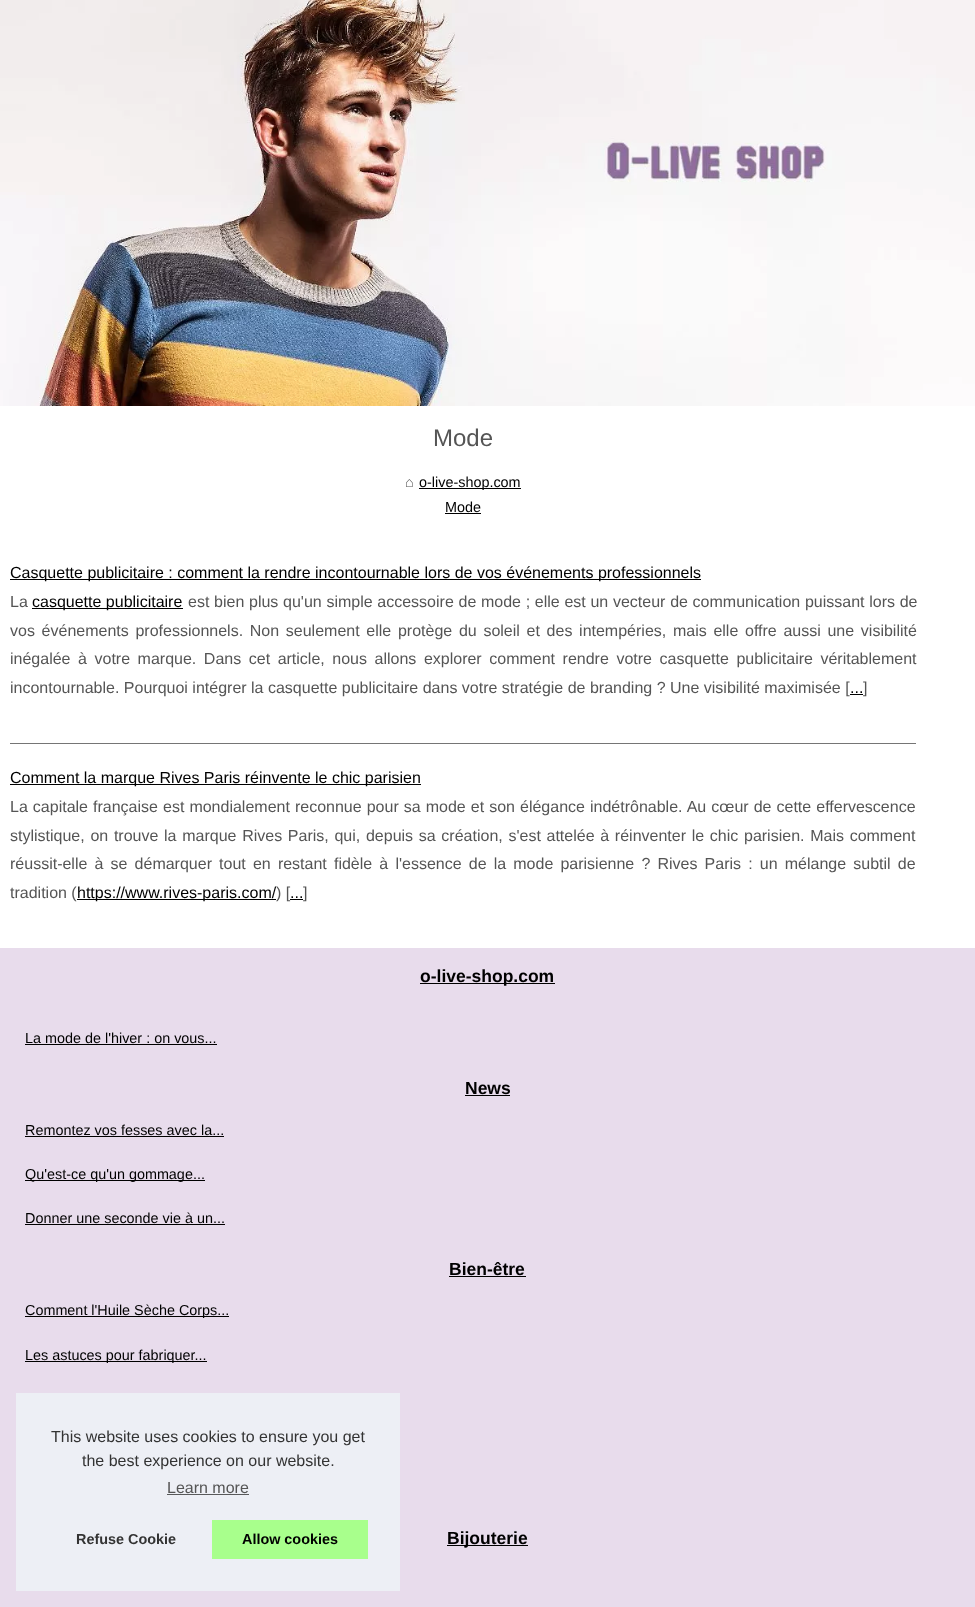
<svg xmlns="http://www.w3.org/2000/svg" width="975" height="1607">
<rect width="100%" height="100%" fill="#fff"/>
<image x="0" y="0" width="975" height="406" href="media/1.png"/>
<text x="433" y="446" style="font-family:Liberation Sans;font-size:24px;fill:#555">Mode</text>
<text x="405" y="487" style="font-family:Liberation Sans;font-size:14.4px;fill:#555">⌂</text>
<rect x="419" y="488" width="102" height="1" fill="#000"/>
<text x="419" y="487" style="font-family:Liberation Sans;font-size:14.4px;fill:#000">o-live-shop.com</text>
<text x="445" y="512" style="font-family:Liberation Sans;font-size:14.4px;fill:#000">Mode</text>
<rect x="445" y="513" width="36" height="1" fill="#000"/>
<rect x="10" y="579" width="691" height="1" fill="#000"/>
<text x="10" y="578" style="font-family:Liberation Sans;font-size:16px;fill:#000">Casquette publicitaire : comment la rendre incontournable lors de vos événements professionnels</text>
<text x="10" y="607" style="font-family:Liberation Sans;font-size:16px;fill:#555">La</text>
<rect x="32" y="608" width="151" height="1" fill="#000"/>
<text x="32" y="607" style="font-family:Liberation Sans;font-size:16px;fill:#000">casquette publicitaire</text>
<text x="188" y="607" word-spacing="0.25" style="font-family:Liberation Sans;font-size:16px;fill:#555">est bien plus qu'un simple accessoire de mode ; elle est un vecteur de communication puissant lors de</text>
<text x="10" y="636" word-spacing="2.25" style="font-family:Liberation Sans;font-size:16px;fill:#555">vos événements professionnels. Non seulement elle protège du soleil et des intempéries, mais elle offre aussi une visibilité</text>
<text x="10" y="664" word-spacing="3.1" style="font-family:Liberation Sans;font-size:16px;fill:#555">inégalée à votre marque. Dans cet article, nous allons explorer comment rendre votre casquette publicitaire véritablement</text>
<text x="10" y="693" style="font-family:Liberation Sans;font-size:16px;fill:#555">incontournable. Pourquoi intégrer la casquette publicitaire dans votre stratégie de branding ? Une visibilité maximisée [</text>
<text x="850" y="693" style="font-family:Liberation Sans;font-size:16px;fill:#000">...</text>
<rect x="850" y="694" width="13" height="1" fill="#000"/>
<text x="863" y="693" style="font-family:Liberation Sans;font-size:16px;fill:#555">]</text>
<rect x="10" y="743" width="906" height="1" fill="#757575"/>
<rect x="10" y="784" width="411" height="1" fill="#000"/>
<text x="10" y="783" style="font-family:Liberation Sans;font-size:16px;fill:#000">Comment la marque Rives Paris réinvente le chic parisien</text>
<text x="10" y="812" word-spacing="0.6" style="font-family:Liberation Sans;font-size:16px;fill:#555">La capitale française est mondialement reconnue pour sa mode et son élégance indétrônable. Au cœur de cette effervescence</text>
<text x="10" y="841" word-spacing="1.25" style="font-family:Liberation Sans;font-size:16px;fill:#555">stylistique, on trouve la marque Rives Paris, qui, depuis sa création, s'est attelée à réinventer le chic parisien. Mais comment</text>
<text x="10" y="869" word-spacing="2.7" style="font-family:Liberation Sans;font-size:16px;fill:#555">réussit-elle à se démarquer tout en restant fidèle à l'essence de la mode parisienne ? Rives Paris : un mélange subtil de</text>
<text x="10" y="898" style="font-family:Liberation Sans;font-size:16px;fill:#555">tradition (</text>
<rect x="77" y="899" width="199" height="1" fill="#000"/>
<text x="77" y="898" style="font-family:Liberation Sans;font-size:16px;fill:#000">https://www.rives-paris.com/</text>
<text x="276" y="898" style="font-family:Liberation Sans;font-size:16px;fill:#555">) [</text>
<text x="290" y="898" style="font-family:Liberation Sans;font-size:16px;fill:#000">...</text>
<rect x="290" y="899" width="13" height="1" fill="#000"/>
<text x="303" y="898" style="font-family:Liberation Sans;font-size:16px;fill:#555">]</text>
<rect y="948" width="975" height="659" fill="#e8dcec"/>
<rect x="420" y="983" width="135" height="1" fill="#000"/>
<text x="420" y="982" style="font-family:Liberation Sans;font-size:17.5px;font-weight:bold;fill:#000">o-live-shop.com</text>
<text x="25" y="1043" style="font-family:Liberation Sans;font-size:14.4px;fill:#000">La mode de l'hiver : on vous...</text>
<rect x="25" y="1044" width="192" height="1" fill="#000"/>
<text x="465" y="1094" style="font-family:Liberation Sans;font-size:17.5px;font-weight:bold;fill:#000">News</text>
<rect x="465" y="1095" width="45" height="1" fill="#000"/>
<text x="25" y="1135" style="font-family:Liberation Sans;font-size:14.4px;fill:#000">Remontez vos fesses avec la...</text>
<rect x="25" y="1136" width="199" height="1" fill="#000"/>
<rect x="25" y="1180" width="180" height="1" fill="#000"/>
<text x="25" y="1179" style="font-family:Liberation Sans;font-size:14.4px;fill:#000">Qu'est-ce qu'un gommage...</text>
<text x="25" y="1223" style="font-family:Liberation Sans;font-size:14.4px;fill:#000">Donner une seconde vie à un...</text>
<rect x="25" y="1224" width="200" height="1" fill="#000"/>
<text x="449" y="1275" style="font-family:Liberation Sans;font-size:17.5px;font-weight:bold;fill:#000">Bien-être</text>
<rect x="449" y="1276" width="77" height="1" fill="#000"/>
<rect x="25" y="1316" width="204" height="1" fill="#000"/>
<text x="25" y="1315" style="font-family:Liberation Sans;font-size:14.4px;fill:#000">Comment l'Huile Sèche Corps...</text>
<rect x="25" y="1361" width="182" height="1" fill="#000"/>
<text x="25" y="1360" style="font-family:Liberation Sans;font-size:14.4px;fill:#000">Les astuces pour fabriquer...</text>
<rect x="447" y="1545" width="81" height="1" fill="#000"/>
<text x="447" y="1544" style="font-family:Liberation Sans;font-size:17.5px;font-weight:bold;fill:#000">Bijouterie</text>
<rect x="16" y="1393" width="384" height="198" fill="#edeff5"/>
<text x="51" y="1442" style="font-family:Liberation Sans;font-size:16px;fill:#333">This website uses cookies to ensure you get</text>
<text x="82" y="1466" style="font-family:Liberation Sans;font-size:16px;fill:#333">the best experience on our website.</text>
<text x="167" y="1493" style="font-family:Liberation Sans;font-size:16px;fill:#555">Learn more</text>
<rect x="167" y="1494" width="82" height="1" fill="#58595a"/>
<text x="76" y="1544" style="font-family:Liberation Sans;font-size:14.4px;font-weight:bold;fill:#333">Refuse Cookie</text>
<rect x="212" y="1520" width="156" height="39" fill="#a8ff8c"/>
<text x="242" y="1544" style="font-family:Liberation Sans;font-size:14.4px;font-weight:bold;fill:#000">Allow cookies</text>
</svg>
